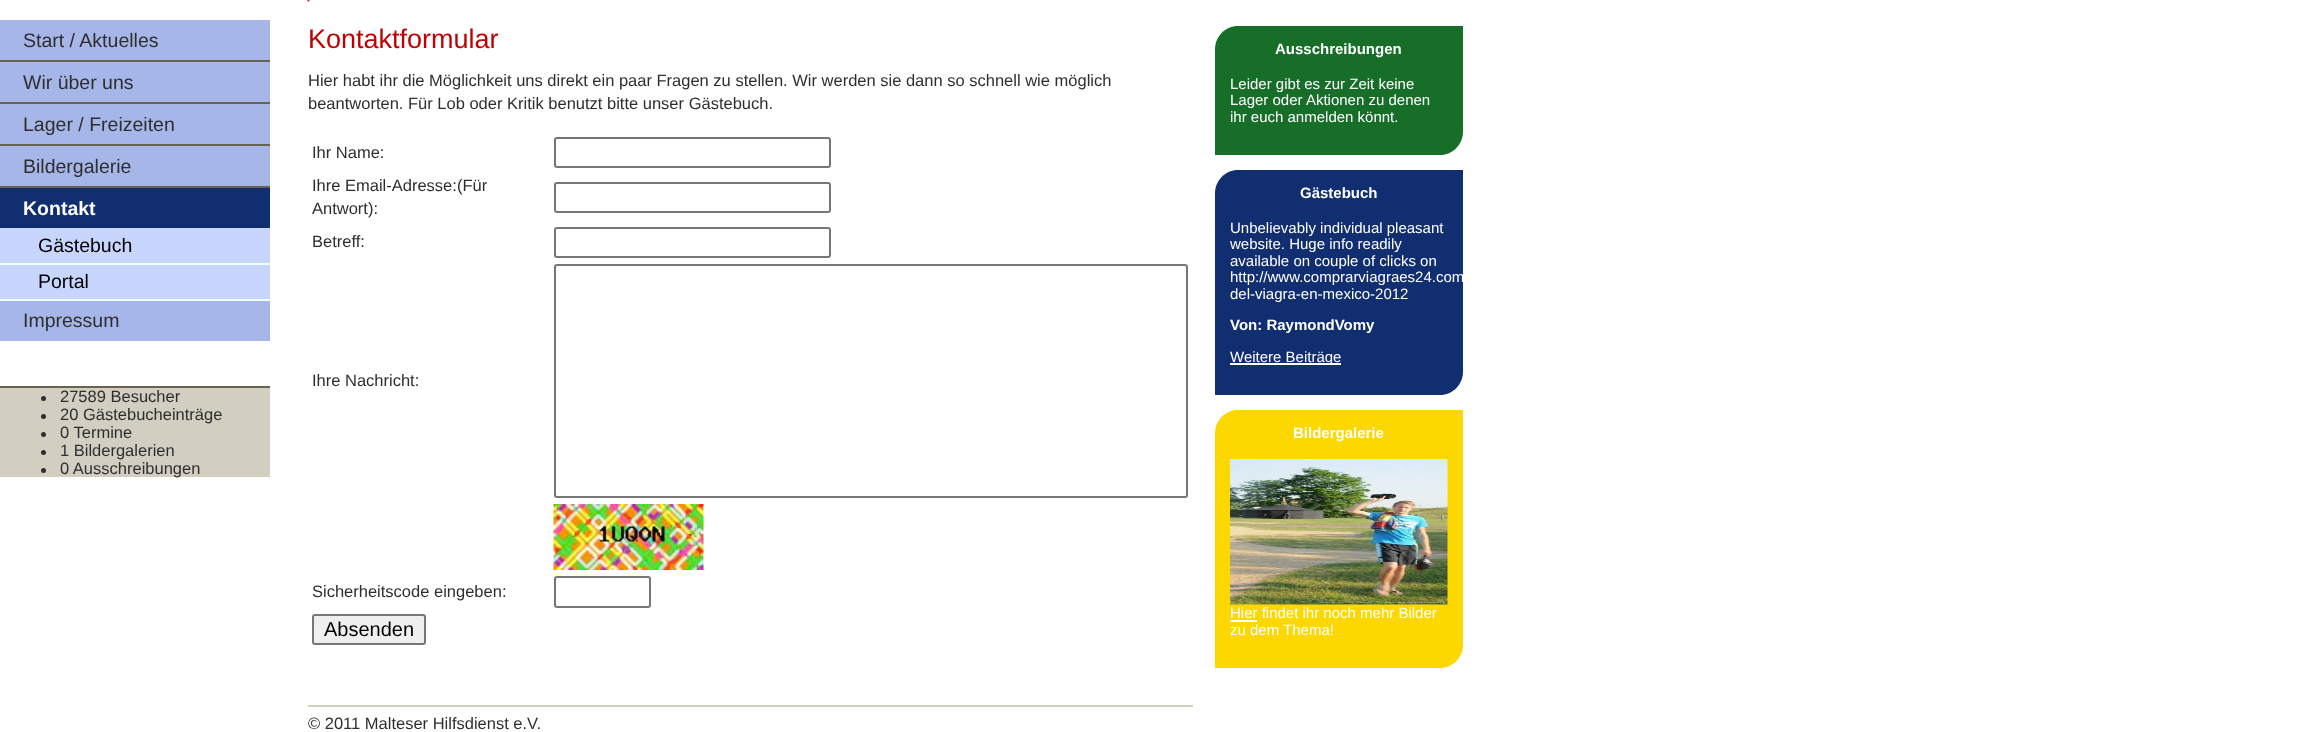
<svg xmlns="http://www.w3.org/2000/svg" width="2312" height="732">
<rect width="100%" height="100%" fill="#fff"/>
<image x="307" y="0" width="4" height="2" href="media/1.png"/>
<rect y="20" width="270" height="321" fill="#a6b6e9"/>
<rect y="60" width="270" height="2" fill="#67634e"/>
<text x="23" y="47" style="font-family:Liberation Sans;font-size:19.5px;fill:#2e2e2e">Start / Aktuelles</text>
<rect y="102" width="270" height="2" fill="#67634e"/>
<text x="23" y="89" style="font-family:Liberation Sans;font-size:19.5px;fill:#2e2e2e">Wir über uns</text>
<rect y="144" width="270" height="2" fill="#67634e"/>
<text x="23" y="131" style="font-family:Liberation Sans;font-size:19.5px;fill:#2e2e2e">Lager / Freizeiten</text>
<rect y="186" width="270" height="2" fill="#67634e"/>
<text x="23" y="173" style="font-family:Liberation Sans;font-size:19.5px;fill:#2e2e2e">Bildergalerie</text>
<rect y="188" width="270" height="40" fill="#102e70"/>
<rect y="299" width="270" height="2" fill="#f0ffff"/>
<text x="23" y="215" style="font-family:Liberation Sans;font-size:19.5px;font-weight:bold;fill:#fff">Kontakt</text>
<rect y="228" width="270" height="71" fill="#c8d5fd"/>
<rect y="263" width="270" height="2" fill="#f0ffff"/>
<text x="38" y="252" style="font-family:Liberation Sans;font-size:19.5px;fill:#000">Gästebuch</text>
<text x="38" y="288" style="font-family:Liberation Sans;font-size:19.5px;fill:#000">Portal</text>
<text x="23" y="327" style="font-family:Liberation Sans;font-size:19.5px;fill:#2e2e2e">Impressum</text>
<rect y="388" width="270" height="89" fill="#d2cfc2"/>
<rect y="386" width="270" height="2" fill="#67634e"/>
<circle cx="43.5" cy="398.5" r="2.5" fill="#2e2e2e"/>
<text x="60" y="402" style="font-family:Liberation Sans;font-size:16.5px;fill:#2e2e2e">27589 Besucher</text>
<circle cx="43.5" cy="416.5" r="2.5" fill="#2e2e2e"/>
<text x="60" y="420" style="font-family:Liberation Sans;font-size:16.5px;fill:#2e2e2e">20 Gästebucheinträge</text>
<circle cx="43.5" cy="434.5" r="2.5" fill="#2e2e2e"/>
<text x="60" y="438" style="font-family:Liberation Sans;font-size:16.5px;fill:#2e2e2e">0 Termine</text>
<circle cx="43.5" cy="452.5" r="2.5" fill="#2e2e2e"/>
<text x="60" y="456" style="font-family:Liberation Sans;font-size:16.5px;fill:#2e2e2e">1 Bildergalerien</text>
<circle cx="43.5" cy="470.5" r="2.5" fill="#2e2e2e"/>
<text x="60" y="474" style="font-family:Liberation Sans;font-size:16.5px;fill:#2e2e2e">0 Ausschreibungen</text>
<text x="308" y="48" style="font-family:Liberation Sans;font-size:27px;fill:#c00004">Kontaktformular</text>
<text x="308" y="86" style="font-family:Liberation Sans;font-size:16.5px;fill:#2e2e2e">Hier habt ihr die Möglichkeit uns direkt ein paar Fragen zu stellen. Wir werden sie dann so schnell wie möglich</text>
<text x="308" y="109" style="font-family:Liberation Sans;font-size:16.5px;fill:#2e2e2e">beantworten. Für Lob oder Kritik benutzt bitte unser Gästebuch.</text>
<text x="312" y="158" style="font-family:Liberation Sans;font-size:16.5px;fill:#2e2e2e">Ihr Name:</text>
<rect x="555" y="138" width="275" height="29" rx="2" fill="none" stroke="#767676" stroke-width="2"/>
<text x="312" y="191" style="font-family:Liberation Sans;font-size:16.5px;fill:#2e2e2e">Ihre Email-Adresse:(Für</text>
<text x="312" y="214" style="font-family:Liberation Sans;font-size:16.5px;fill:#2e2e2e">Antwort):</text>
<rect x="555" y="183" width="275" height="29" rx="2" fill="none" stroke="#767676" stroke-width="2"/>
<text x="312" y="247" style="font-family:Liberation Sans;font-size:16.5px;fill:#2e2e2e">Betreff:</text>
<rect x="555" y="228" width="275" height="29" rx="2" fill="none" stroke="#767676" stroke-width="2"/>
<text x="312" y="386" style="font-family:Liberation Sans;font-size:16.5px;fill:#2e2e2e">Ihre Nachricht:</text>
<rect x="555" y="265" width="632" height="232" rx="2" fill="none" stroke="#767676" stroke-width="2"/>
<image x="553" y="504" width="151" height="66" href="media/2.png"/>
<text x="312" y="597" style="font-family:Liberation Sans;font-size:16.5px;fill:#2e2e2e">Sicherheitscode eingeben:</text>
<rect x="555" y="577" width="95" height="30" rx="2" fill="none" stroke="#767676" stroke-width="2"/>
<rect x="313" y="615" width="112" height="29" rx="2" fill="#efefef" stroke="#767676" stroke-width="2"/>
<text x="324" y="636" style="font-family:Liberation Sans;font-size:20px;fill:#000">Absenden</text>
<path d="M1238 26h225v106c0 12.5-10.5 23-23 23h-225v-106c0-12.5 10.5-23 23-23z" fill="#176e29"/>
<text x="1275" y="54" style="font-family:Liberation Sans;font-size:15px;font-weight:bold;fill:#fff">Ausschreibungen</text>
<text x="1230" y="89" style="font-family:Liberation Sans;font-size:15px;fill:#fff">Leider gibt es zur Zeit keine</text>
<text x="1230" y="105" style="font-family:Liberation Sans;font-size:15px;fill:#fff">Lager oder Aktionen zu denen</text>
<text x="1230" y="122" style="font-family:Liberation Sans;font-size:15px;fill:#fff">ihr euch anmelden könnt.</text>
<path d="M1238 170h225v202c0 12.5-10.5 23-23 23h-225v-202c0-12.5 10.5-23 23-23z" fill="#102e70"/>
<text x="1300" y="198" style="font-family:Liberation Sans;font-size:15px;font-weight:bold;fill:#fff">Gästebuch</text>
<text x="1230" y="233" style="font-family:Liberation Sans;font-size:15px;fill:#fff">Unbelievably individual pleasant</text>
<text x="1230" y="249" style="font-family:Liberation Sans;font-size:15px;fill:#fff">website. Huge info readily</text>
<text x="1230" y="266" style="font-family:Liberation Sans;font-size:15px;fill:#fff">available on couple of clicks on</text>
<text x="1230" y="282" style="font-family:Liberation Sans;font-size:15px;fill:#fff">http://www.comprarviagraes24.com</text>
<text x="1230" y="299" style="font-family:Liberation Sans;font-size:15px;fill:#fff">del-viagra-en-mexico-2012</text>
<text x="1230" y="330" style="font-family:Liberation Sans;font-size:15px;font-weight:bold;fill:#fff">Von: RaymondVomy</text>
<rect x="1230" y="363" width="111" height="2" fill="#fff"/>
<text x="1230" y="362" style="font-family:Liberation Sans;font-size:15px;fill:#fff">Weitere Beiträge</text>
<path d="M1238 410h225v235c0 12.5-10.5 23-23 23h-225v-235c0-12.5 10.5-23 23-23z" fill="#fdd800"/>
<text x="1293" y="438" style="font-family:Liberation Sans;font-size:15px;font-weight:bold;fill:#fff">Bildergalerie</text>
<image x="1230" y="459" width="218" height="146" href="media/3.png"/>
<text x="1230" y="618" style="font-family:Liberation Sans;font-size:15px;fill:#fff">Hier findet ihr noch mehr Bilder</text>
<rect x="1230" y="620" width="27" height="2" fill="#fff"/>
<text x="1230" y="635" style="font-family:Liberation Sans;font-size:15px;fill:#fff">zu dem Thema!</text>
<rect x="308" y="705" width="885" height="2" fill="#d2cfc2"/>
<text x="308" y="729" style="font-family:Liberation Sans;font-size:16.5px;fill:#2e2e2e">© 2011 Malteser Hilfsdienst e.V.</text>
</svg>
